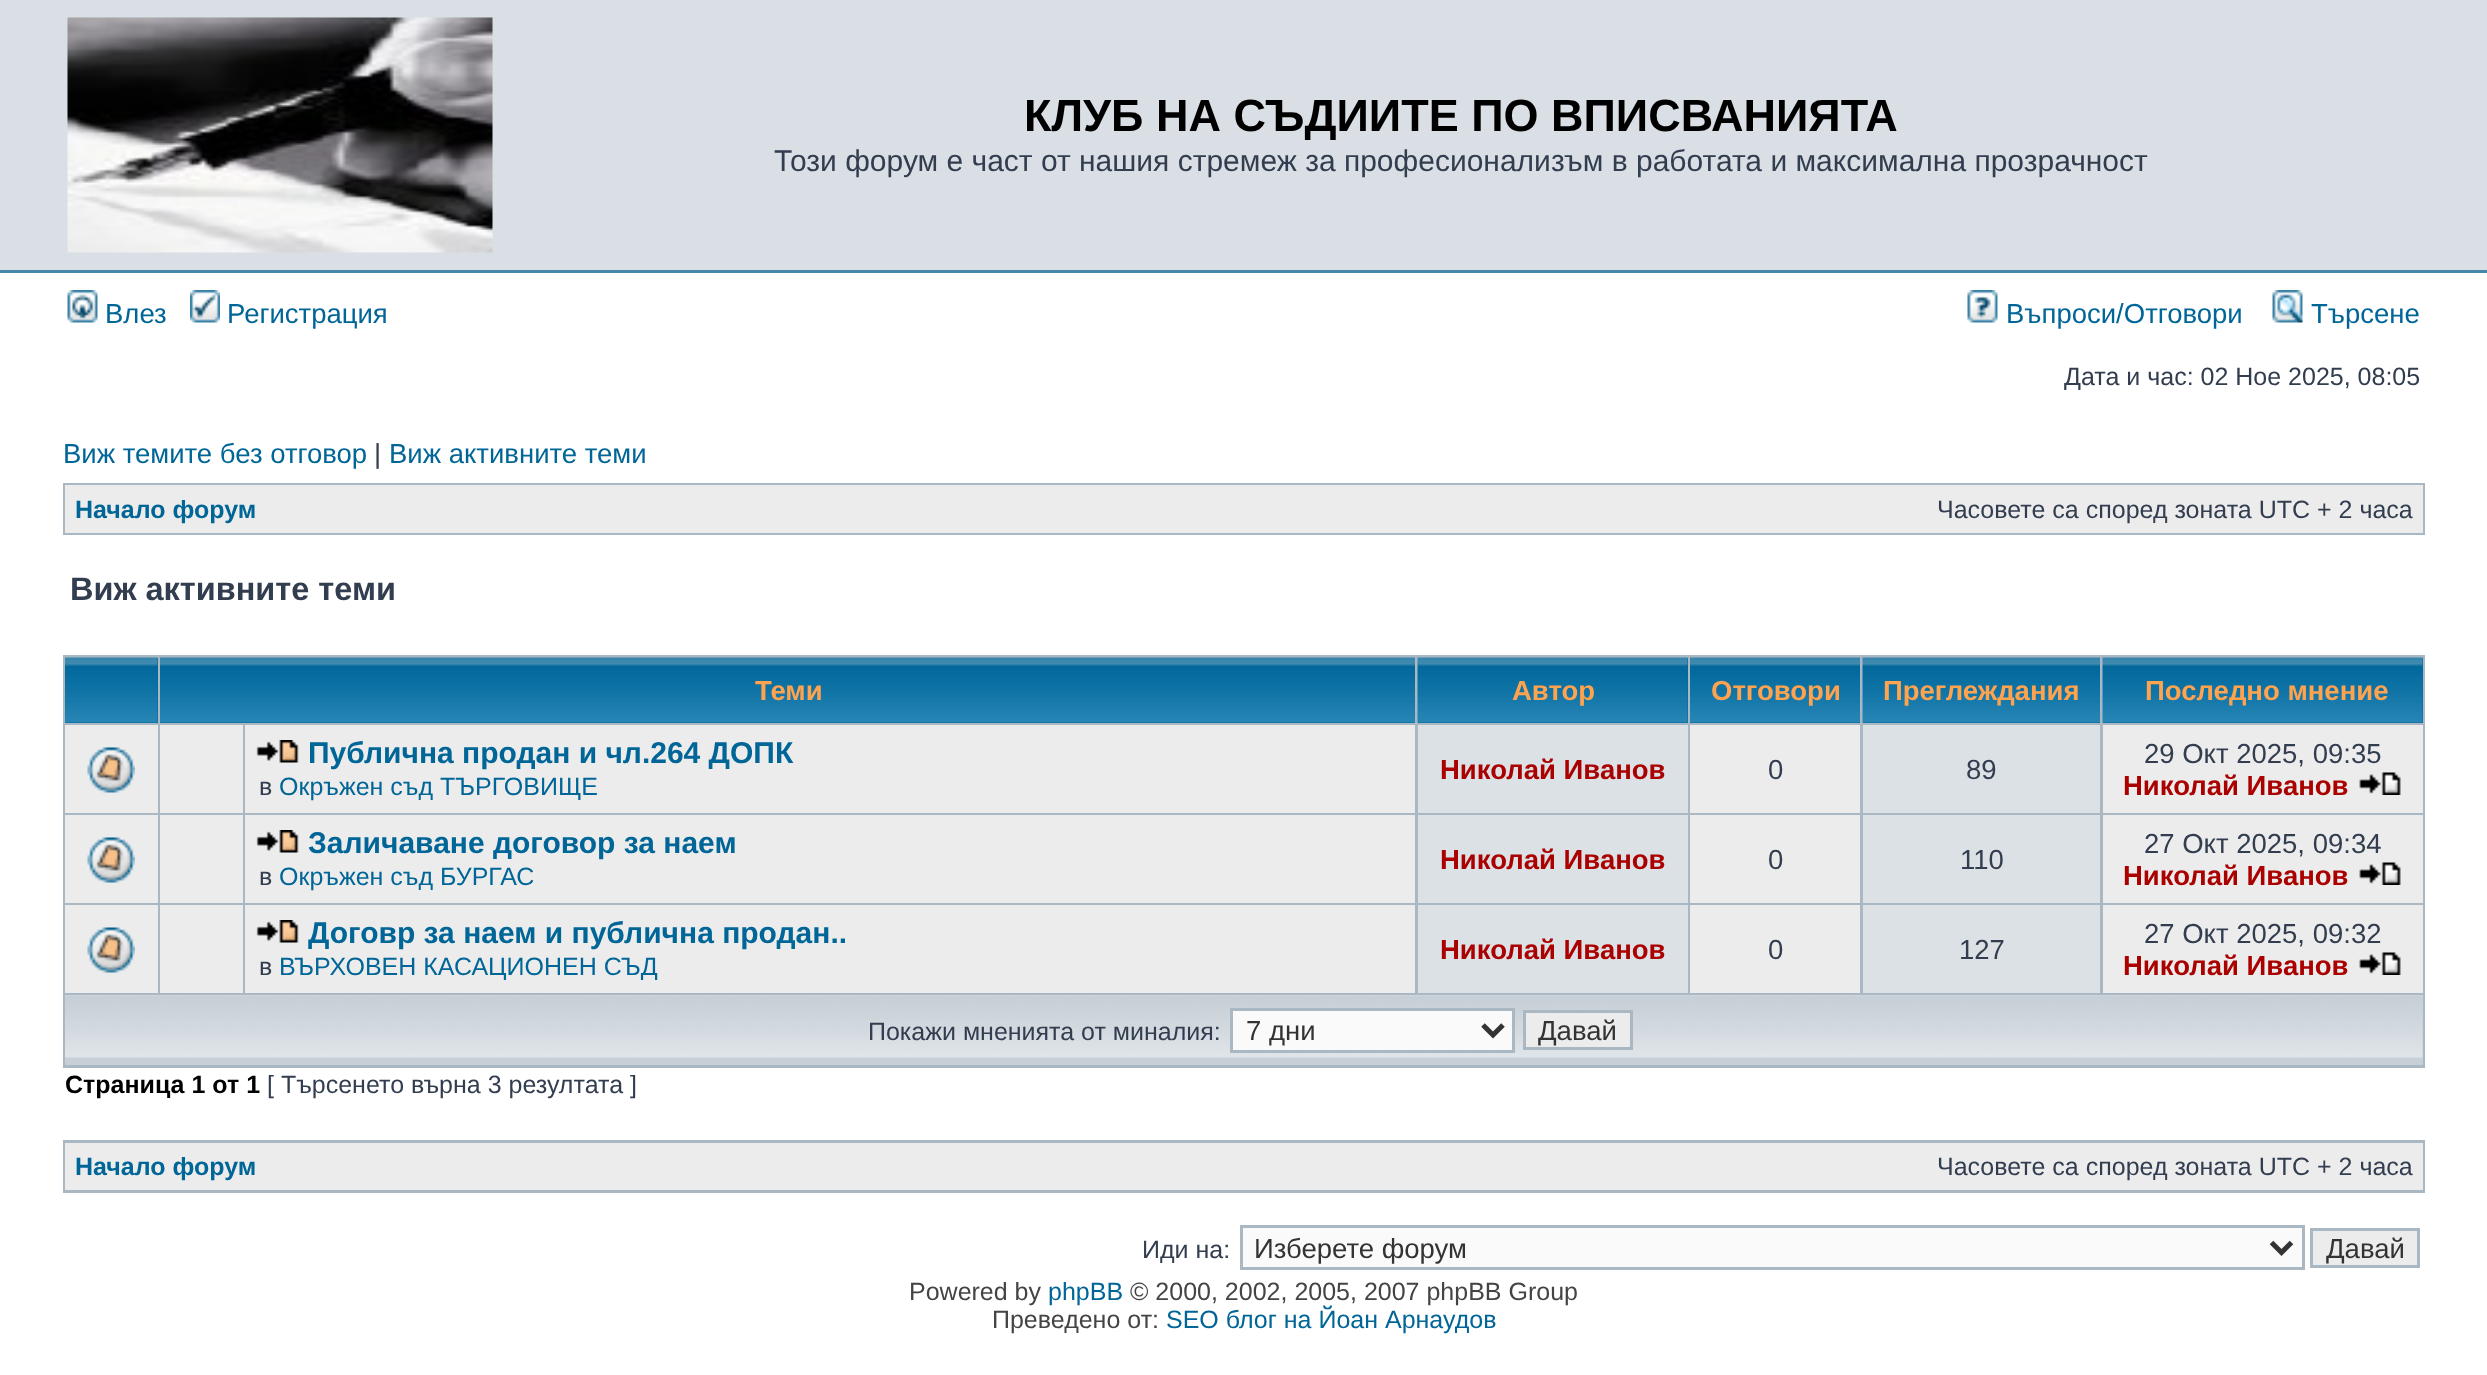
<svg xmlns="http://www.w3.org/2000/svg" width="2487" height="1375">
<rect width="100%" height="100%" fill="#fff"/>
<rect width="2487" height="270" fill="#d9dfe4"/>
<rect y="270" width="2487" height="3" fill="#4787a7"/>
<image x="67" y="17" width="426" height="236" href="media/1.png"/>
<text x="1024" y="131" style="font-family:Liberation Sans;font-size:45px;font-weight:bold;fill:#000">КЛУБ НА СЪДИИТЕ ПО ВПИСВАНИЯТА</text>
<text x="774" y="171" style="font-family:Liberation Sans;font-size:30px;fill:#323d4f">Този форум е част от нашия стремеж за професионализъм в работата и максимална прозрачност</text>
<image x="67" y="290" width="31" height="33" href="media/2.png"/>
<text x="105" y="323" style="font-family:Liberation Sans;font-size:27.5px;fill:#006597">Влез</text>
<image x="190" y="290" width="30" height="33" href="media/3.png"/>
<text x="227" y="323" style="font-family:Liberation Sans;font-size:27.5px;fill:#006597">Регистрация</text>
<image x="1967" y="290" width="31" height="33" href="media/4.png"/>
<text x="2006" y="323" style="font-family:Liberation Sans;font-size:27.5px;fill:#006597">Въпроси/Отговори</text>
<image x="2272" y="290" width="31" height="33" href="media/5.png"/>
<text x="2311" y="323" style="font-family:Liberation Sans;font-size:27.5px;fill:#006597">Търсене</text>
<text x="2064" y="385" style="font-family:Liberation Sans;font-size:25px;fill:#323d4f">Дата и час: 02 Ное 2025, 08:05</text>
<text x="63" y="463" style="font-family:Liberation Sans;font-size:27.5px;fill:#006597">Виж темите без отговор</text>
<text x="374" y="463" style="font-family:Liberation Sans;font-size:27.5px;fill:#323d4f">|</text>
<text x="389" y="463" style="font-family:Liberation Sans;font-size:27.5px;fill:#006597">Виж активните теми</text>
<rect x="63" y="483" width="2362" height="52" fill="#a9b8c2"/>
<rect x="65" y="485" width="2358" height="48" fill="#ececec"/>
<text x="75" y="518" style="font-family:Liberation Sans;font-size:25px;font-weight:bold;fill:#006597">Начало форум</text>
<text x="1937" y="518" style="font-family:Liberation Sans;font-size:25px;fill:#323d4f">Часовете са според зоната UTC + 2 часа</text>
<text x="70" y="600" style="font-family:Liberation Sans;font-size:32.5px;font-weight:bold;fill:#323d4f">Виж активните теми</text>
<rect x="63" y="655" width="2362" height="413" fill="#a9b8c2"/>
<rect x="65" y="658" width="93" height="65" fill="#069"/>
<image x="65" y="657" width="93" height="66" href="media/6.png"/>
<rect x="160" y="722" width="1255" height="1" fill="#069"/>
<image x="160" y="657" width="1255" height="66" href="media/7.png"/>
<text x="755" y="700" style="font-family:Liberation Sans;font-size:27.5px;font-weight:bold;fill:#ffa34f">Теми</text>
<rect x="1418" y="658" width="270" height="65" fill="#069"/>
<image x="1417" y="657" width="271" height="66" href="media/8.png"/>
<text x="1512" y="700" style="font-family:Liberation Sans;font-size:27.5px;font-weight:bold;fill:#ffa34f">Автор</text>
<rect x="1690" y="722" width="170" height="1" fill="#069"/>
<image x="1690" y="657" width="170" height="66" href="media/9.png"/>
<text x="1711" y="700" style="font-family:Liberation Sans;font-size:27.5px;font-weight:bold;fill:#ffa34f">Отговори</text>
<rect x="1863" y="722" width="237" height="1" fill="#069"/>
<image x="1862" y="657" width="238" height="66" href="media/10.png"/>
<text x="1883" y="700" style="font-family:Liberation Sans;font-size:27.5px;font-weight:bold;fill:#ffa34f">Преглеждания</text>
<rect x="2103" y="658" width="320" height="65" fill="#069"/>
<image x="2102" y="657" width="321" height="66" href="media/11.png"/>
<text x="2145" y="700" style="font-family:Liberation Sans;font-size:27.5px;font-weight:bold;fill:#ffa34f">Последно мнение</text>
<rect x="65" y="725" width="93" height="88" fill="#ececec"/>
<image x="87" y="747" width="48" height="46" href="media/12.png"/>
<rect x="160" y="725" width="83" height="88" fill="#ececec"/>
<rect x="245" y="725" width="1170" height="88" fill="#ececec"/>
<image x="256" y="740" width="43" height="23" href="media/13.png"/>
<text x="308" y="763" style="font-family:Liberation Sans;font-size:30px;font-weight:bold;fill:#006597">Публична продан и чл.264 ДОПК</text>
<text x="259" y="795" style="font-family:Liberation Sans;font-size:25px;fill:#323d4f">в</text>
<text x="279" y="795" style="font-family:Liberation Sans;font-size:25px;fill:#006597">Окръжен съд ТЪРГОВИЩЕ</text>
<rect x="1418" y="725" width="270" height="88" fill="#dce1e5"/>
<text x="1440" y="779" style="font-family:Liberation Sans;font-size:27.5px;font-weight:bold;fill:#a00">Николай Иванов</text>
<rect x="1690" y="725" width="170" height="88" fill="#ececec"/>
<text x="1768" y="779" style="font-family:Liberation Sans;font-size:27.5px;fill:#323d4f">0</text>
<rect x="1863" y="725" width="237" height="88" fill="#dce1e5"/>
<text x="1966" y="779" style="font-family:Liberation Sans;font-size:27.5px;fill:#323d4f">89</text>
<rect x="2103" y="725" width="320" height="88" fill="#ececec"/>
<text x="2144" y="763" style="font-family:Liberation Sans;font-size:27.5px;fill:#323d4f">29 Окт 2025, 09:35</text>
<text x="2123" y="795" style="font-family:Liberation Sans;font-size:27.5px;font-weight:bold;fill:#a00">Николай Иванов</text>
<image x="2359" y="772" width="42" height="23" href="media/14.png"/>
<rect x="65" y="815" width="93" height="88" fill="#ececec"/>
<image x="87" y="837" width="48" height="46" href="media/12.png"/>
<rect x="160" y="815" width="83" height="88" fill="#ececec"/>
<rect x="245" y="815" width="1170" height="88" fill="#ececec"/>
<image x="256" y="830" width="43" height="23" href="media/13.png"/>
<text x="308" y="853" style="font-family:Liberation Sans;font-size:30px;font-weight:bold;fill:#006597">Заличаване договор за наем</text>
<text x="259" y="885" style="font-family:Liberation Sans;font-size:25px;fill:#323d4f">в</text>
<text x="279" y="885" style="font-family:Liberation Sans;font-size:25px;fill:#006597">Окръжен съд БУРГАС</text>
<rect x="1418" y="815" width="270" height="88" fill="#dce1e5"/>
<text x="1440" y="869" style="font-family:Liberation Sans;font-size:27.5px;font-weight:bold;fill:#a00">Николай Иванов</text>
<rect x="1690" y="815" width="170" height="88" fill="#ececec"/>
<text x="1768" y="869" style="font-family:Liberation Sans;font-size:27.5px;fill:#323d4f">0</text>
<rect x="1863" y="815" width="237" height="88" fill="#dce1e5"/>
<text x="1960" y="869" style="font-family:Liberation Sans;font-size:27.5px;fill:#323d4f">110</text>
<rect x="2103" y="815" width="320" height="88" fill="#ececec"/>
<text x="2144" y="853" style="font-family:Liberation Sans;font-size:27.5px;fill:#323d4f">27 Окт 2025, 09:34</text>
<text x="2123" y="885" style="font-family:Liberation Sans;font-size:27.5px;font-weight:bold;fill:#a00">Николай Иванов</text>
<image x="2359" y="862" width="42" height="23" href="media/15.png"/>
<rect x="65" y="905" width="93" height="88" fill="#ececec"/>
<image x="87" y="927" width="48" height="46" href="media/12.png"/>
<rect x="160" y="905" width="83" height="88" fill="#ececec"/>
<rect x="245" y="905" width="1170" height="88" fill="#ececec"/>
<image x="256" y="920" width="43" height="23" href="media/13.png"/>
<text x="308" y="943" style="font-family:Liberation Sans;font-size:30px;font-weight:bold;fill:#006597">Договр за наем и публична продан..</text>
<text x="259" y="975" style="font-family:Liberation Sans;font-size:25px;fill:#323d4f">в</text>
<text x="279" y="975" style="font-family:Liberation Sans;font-size:25px;fill:#006597">ВЪРХОВЕН КАСАЦИОНЕН СЪД</text>
<rect x="1418" y="905" width="270" height="88" fill="#dce1e5"/>
<text x="1440" y="959" style="font-family:Liberation Sans;font-size:27.5px;font-weight:bold;fill:#a00">Николай Иванов</text>
<rect x="1690" y="905" width="170" height="88" fill="#ececec"/>
<text x="1768" y="959" style="font-family:Liberation Sans;font-size:27.5px;fill:#323d4f">0</text>
<rect x="1863" y="905" width="237" height="88" fill="#dce1e5"/>
<text x="1959" y="959" style="font-family:Liberation Sans;font-size:27.5px;fill:#323d4f">127</text>
<rect x="2103" y="905" width="320" height="88" fill="#ececec"/>
<text x="2144" y="943" style="font-family:Liberation Sans;font-size:27.5px;fill:#323d4f">27 Окт 2025, 09:32</text>
<text x="2123" y="975" style="font-family:Liberation Sans;font-size:27.5px;font-weight:bold;fill:#a00">Николай Иванов</text>
<image x="2359" y="952" width="42" height="23" href="media/15.png"/>
<rect x="65" y="995" width="2358" height="70" fill="#c7d0d7"/>
<image x="65" y="995" width="2358" height="63" href="media/16.png"/>
<text x="868" y="1040" style="font-family:Liberation Sans;font-size:25px;fill:#323d4f">Покажи мненията от миналия:</text>
<rect x="1231.5" y="1009.5" width="282" height="42" fill="#fafafa" stroke="#a9b8c2" stroke-width="3"/>
<path d="M1483 1025l10 10l10-10" fill="none" stroke="#333" stroke-width="5"/>
<text x="1246" y="1040" style="font-family:Liberation Sans;font-size:27.5px;fill:#333">7 дни</text>
<rect x="1524.5" y="1011.5" width="107" height="37" fill="#ececec" stroke="#a9b8c2" stroke-width="3"/>
<text x="1538" y="1040" style="font-family:Liberation Sans;font-size:27.5px;fill:#333">Давай</text>
<text x="65" y="1093" style="font-family:Liberation Sans;font-size:25px;font-weight:bold;fill:#000">Страница 1 от 1</text>
<text x="267" y="1093" style="font-family:Liberation Sans;font-size:25px;fill:#323d4f">[ Търсенето върна 3 резултата ]</text>
<rect x="63" y="1140" width="2362" height="53" fill="#a9b8c2"/>
<rect x="65" y="1143" width="2358" height="47" fill="#ececec"/>
<text x="75" y="1175" style="font-family:Liberation Sans;font-size:25px;font-weight:bold;fill:#006597">Начало форум</text>
<text x="1937" y="1175" style="font-family:Liberation Sans;font-size:25px;fill:#323d4f">Часовете са според зоната UTC + 2 часа</text>
<text x="1142" y="1258" style="font-family:Liberation Sans;font-size:25px;fill:#323d4f">Иди на:</text>
<rect x="1241.5" y="1226.5" width="1062" height="42" fill="#fafafa" stroke="#a9b8c2" stroke-width="3"/>
<path d="M2271.5 1242.5l10 10l10-10" fill="none" stroke="#333" stroke-width="5"/>
<text x="1254" y="1258" style="font-family:Liberation Sans;font-size:27.5px;fill:#333">Изберете форум</text>
<rect x="2311.5" y="1229.5" width="107" height="37" fill="#ececec" stroke="#a9b8c2" stroke-width="3"/>
<text x="2326" y="1258" style="font-family:Liberation Sans;font-size:27.5px;fill:#333">Давай</text>
<text x="909" y="1300" style="font-family:Liberation Sans;font-size:25px;fill:#444">Powered by</text>
<text x="1048" y="1300" style="font-family:Liberation Sans;font-size:25px;fill:#006597">phpBB</text>
<text x="1130" y="1300" style="font-family:Liberation Sans;font-size:25px;fill:#444">© 2000, 2002, 2005, 2007 phpBB Group</text>
<text x="992" y="1328" style="font-family:Liberation Sans;font-size:25px;fill:#444">Преведено от:</text>
<text x="1166" y="1328" style="font-family:Liberation Sans;font-size:25px;fill:#006597">SEO блог на Йоан Арнаудов</text>
</svg>
